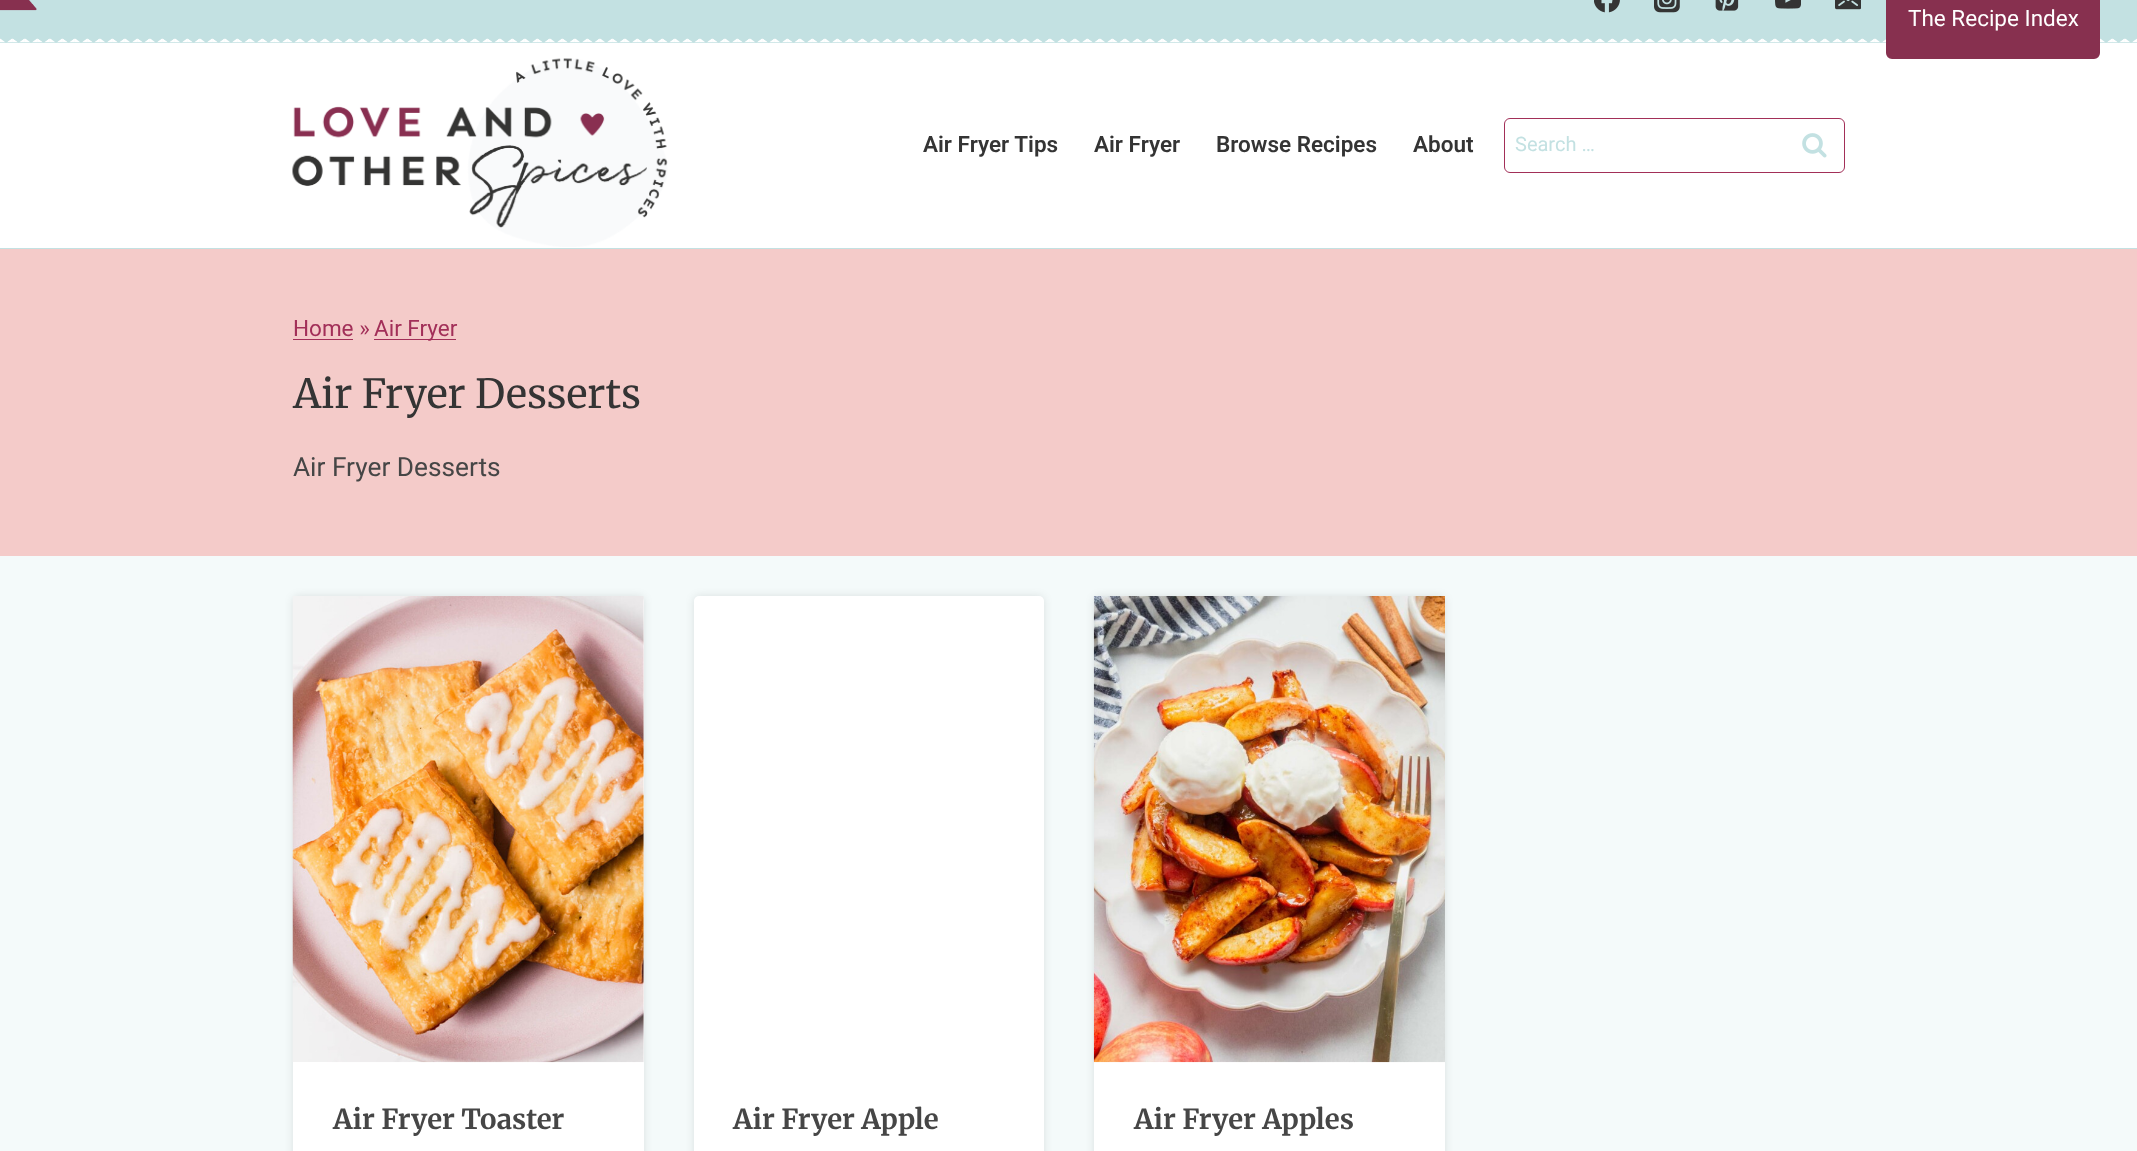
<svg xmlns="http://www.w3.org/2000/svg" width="2137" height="1151">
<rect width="100%" height="100%" fill="#f4fafa"/>
<rect y="43" width="2137" height="205" fill="#fff"/>
<rect width="2137" height="43" fill="#c3e1e2"/>
<image x="0" y="38" width="2137" height="5" href="media/1.png"/>
<image x="0" y="0" width="37" height="11" href="media/2.png"/>
<image x="1594" y="0" width="26" height="13" href="media/3.png"/>
<image x="1654" y="0" width="26" height="13" href="media/4.png"/>
<image x="1715" y="0" width="24" height="11" href="media/5.png"/>
<image x="1775" y="0" width="26" height="9" href="media/6.png"/>
<image x="1835" y="0" width="26" height="10" href="media/7.png"/>
<path d="M1887.5-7.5h211v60.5c0 2.5-2 4.5-4.5 4.5h-202c-2.5 0-4.5-2-4.5-4.5z" fill="#87304f" stroke="#87304f" stroke-width="3"/>
<text x="1908" y="26" style="font-family:Roboto;font-size:22.5px;fill:#fff">The Recipe Index</text>
<rect y="248" width="2137" height="1" fill="#c3e1e2"/>
<image x="292" y="58" width="376" height="189" href="media/8.png"/>
<text x="923" y="152" style="font-family:Roboto;font-size:22.5px;font-weight:600;fill:#343434">Air Fryer Tips</text>
<text x="1094" y="152" style="font-family:Roboto;font-size:22.5px;font-weight:600;fill:#343434">Air Fryer</text>
<text x="1216" y="152" style="font-family:Roboto;font-size:22.5px;font-weight:600;fill:#343434">Browse Recipes</text>
<text x="1413" y="152" style="font-family:Roboto;font-size:22.5px;font-weight:600;fill:#343434">About</text>
<rect x="1504.5" y="118.5" width="340" height="54" rx="5.5" fill="none" stroke="#a22f58"/>
<text x="1515" y="151" style="font-family:Roboto;font-size:20px;fill:#c3e1e2">Search …</text>
<image x="1802" y="133" width="25" height="25" href="media/9.png"/>
<rect y="249" width="2137" height="307" fill="#f4cbc9"/>
<text x="293" y="336" style="font-family:Roboto;font-size:22.5px;fill:#a22f58">Home »</text>
<rect x="293" y="339" width="60" height="1" fill="#a22f58"/>
<rect x="374" y="339" width="82" height="1" fill="#a22f58"/>
<text x="374" y="336" style="font-family:Roboto;font-size:22.5px;fill:#a22f58">Air Fryer</text>
<text x="293" y="408" style="font-family:Merriweather;font-size:40px;fill:#343434">Air Fryer Desserts</text>
<text x="293" y="476" style="font-family:Roboto;font-size:26.25px;fill:#464646">Air Fryer Desserts</text>
<rect x="293" y="596" width="351" height="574" rx="5" fill="#0000001a" filter="blur(4.5px)"/>
<rect x="293" y="596" width="351" height="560" rx="5" fill="#fff"/>
<image x="292" y="596" width="352" height="467" href="media/10.png"/>
<text x="333" y="1129" style="font-family:Merriweather;font-size:27.5px;font-weight:bold;fill:#464646">Air Fryer Toaster</text>
<rect x="694" y="596" width="350" height="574" rx="5" fill="#0000001a" filter="blur(4.5px)"/>
<rect x="694" y="596" width="350" height="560" rx="5" fill="#fff"/>
<text x="733" y="1129" style="font-family:Merriweather;font-size:27.5px;font-weight:bold;fill:#464646">Air Fryer Apple</text>
<rect x="1094" y="596" width="351" height="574" rx="5" fill="#0000001a" filter="blur(4.5px)"/>
<rect x="1094" y="1062" width="351" height="89" fill="#fff"/>
<image x="1093" y="596" width="352" height="467" href="media/11.png"/>
<text x="1134" y="1129" style="font-family:Merriweather;font-size:27.5px;font-weight:bold;fill:#464646">Air Fryer Apples</text>
</svg>
